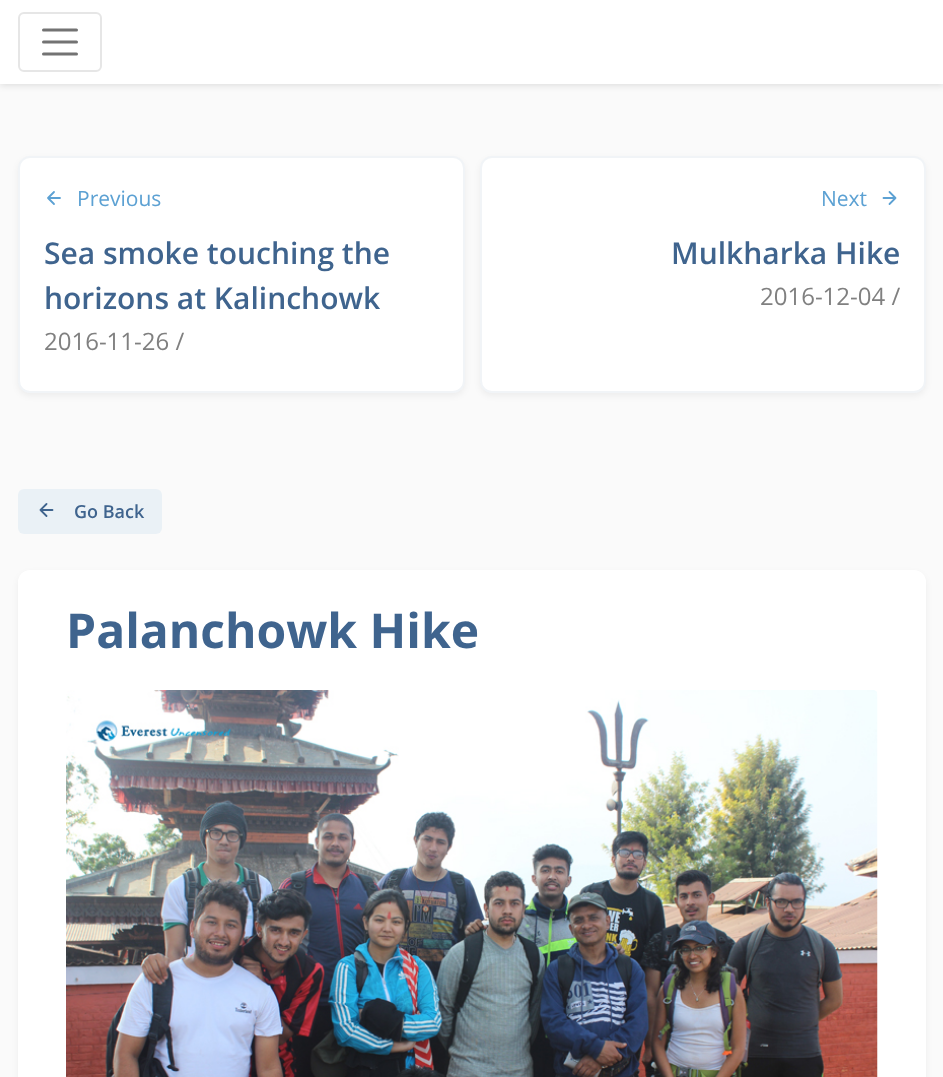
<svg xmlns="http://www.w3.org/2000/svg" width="943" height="1077">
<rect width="100%" height="100%" fill="#fafafa"/>
<rect y="2" width="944" height="84" fill="#0000001a" filter="blur(3px)"/>
<rect width="943" height="84" fill="#fff"/>
<rect x="19" y="13" width="82" height="58" rx="5" fill="none" stroke="#e6e6e6" stroke-width="2"/>
<path d="M43.5 30h33m-33 12h33m-33 12h33" fill="none" stroke="#737373" stroke-width="3" stroke-linecap="round"/>
<rect x="18" y="159" width="447" height="237" rx="12" fill="#0000000d" filter="blur(3px)"/>
<rect x="18" y="156" width="447" height="237" rx="12" fill="#fff"/>
<rect x="19" y="157" width="445" height="235" rx="11" fill="none" stroke="#3f648e12" stroke-width="2"/>
<path d="M60 198h-12m6 6l-6-6l6-6" fill="none" stroke="#5ca1d3" stroke-width="1.8" stroke-linecap="round" stroke-linejoin="round"/>
<text x="77" y="206" style="font-family:Open Sans;font-size:21px;fill:#5ca1d3">Previous</text>
<text x="44" y="264" style="font-family:Open Sans;font-size:30px;font-weight:600;fill:#3f648e">Sea smoke touching the</text>
<text x="44" y="309" style="font-family:Open Sans;font-size:30px;font-weight:600;fill:#3f648e">horizons at Kalinchowk</text>
<text x="44" y="350" style="font-family:Open Sans;font-size:24px;fill:#808080">2016-11-26 /</text>
<rect x="480" y="159" width="446" height="237" rx="12" fill="#0000000d" filter="blur(3px)"/>
<rect x="480" y="156" width="446" height="237" rx="12" fill="#fff"/>
<rect x="481" y="157" width="444" height="235" rx="11" fill="none" stroke="#3f648e12" stroke-width="2"/>
<text x="821" y="206" style="font-family:Open Sans;font-size:21px;fill:#5ca1d3">Next</text>
<path d="M883.5 198h12m-6-6l6 6l-6 6" fill="none" stroke="#5ca1d3" stroke-width="1.8" stroke-linecap="round" stroke-linejoin="round"/>
<text x="671" y="264" style="font-family:Open Sans;font-size:30px;font-weight:600;fill:#3f648e">Mulkharka Hike</text>
<text x="760" y="305" style="font-family:Open Sans;font-size:24px;fill:#808080">2016-12-04 /</text>
<rect x="18" y="489" width="144" height="45" rx="6" fill="#eaf1f6"/>
<path d="M52.5 510h-12m6 6l-6-6l6-6" fill="none" stroke="#3f648e" stroke-width="1.8" stroke-linecap="round" stroke-linejoin="round"/>
<text x="74" y="518" style="font-family:Open Sans;font-size:18px;font-weight:600;fill:#3f648e">Go Back</text>
<rect x="18" y="573" width="908" height="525" rx="12" fill="#0000000d" filter="blur(3px)"/>
<rect x="18" y="570" width="908" height="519" rx="12" fill="#fff"/>
<text x="66" y="648" style="font-family:Open Sans;font-size:48px;font-weight:bold;fill:#3f648e">Palanchowk Hike</text>
<image x="66" y="690" width="812" height="387" href="media/1.png"/>
</svg>
